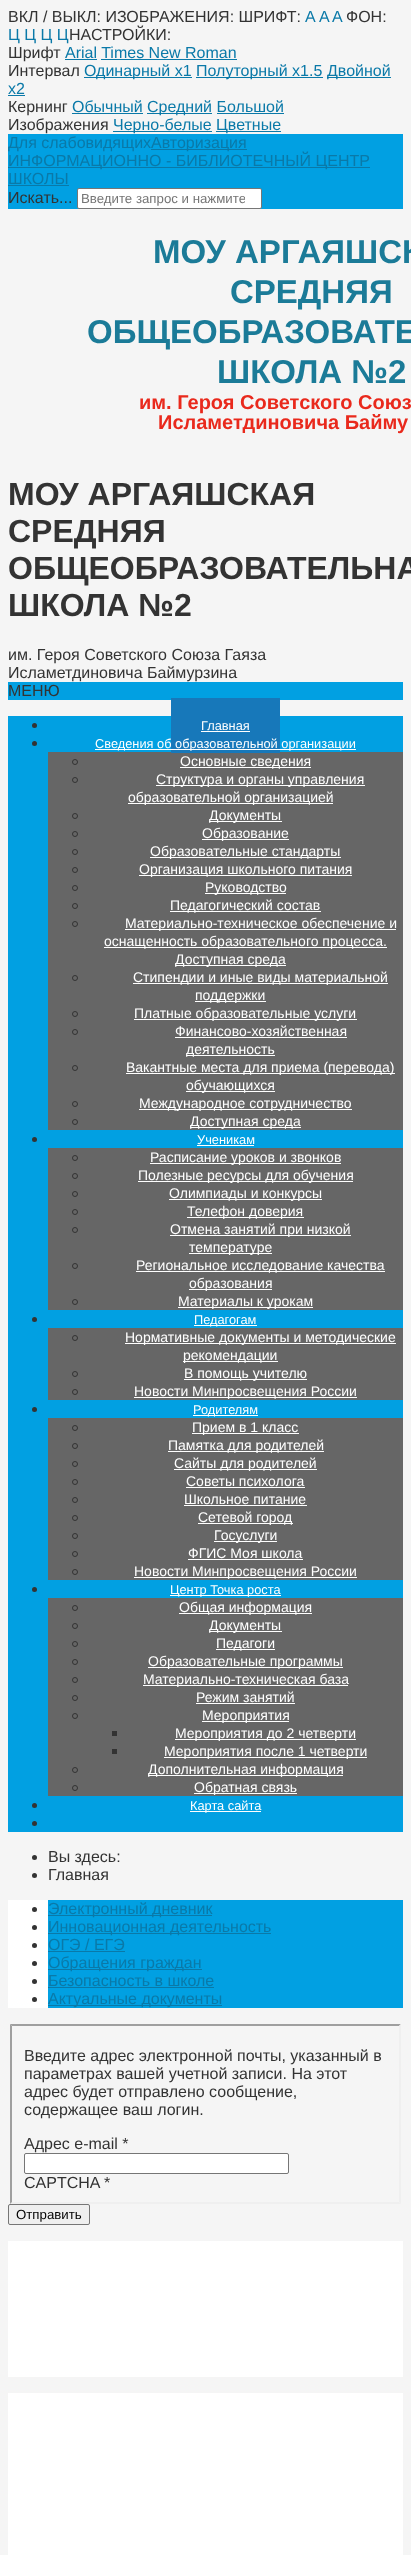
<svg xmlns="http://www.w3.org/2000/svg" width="411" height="2555">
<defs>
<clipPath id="clip1"><rect x="81" y="191" width="164" height="15"/></clipPath>
</defs>
<rect width="100%" height="100%" fill="#f5f5f5"/>
<text x="8" y="22" style="font-family:Liberation Sans;font-size:16px;fill:#333">ВКЛ / ВЫКЛ: ИЗОБРАЖЕНИЯ: ШРИФТ:</text>
<text x="305" y="22" style="font-family:Liberation Sans;font-size:16px;fill:#0a79a8">A</text>
<text x="319" y="22" style="font-family:Liberation Sans;font-size:16px;fill:#0a79a8">A</text>
<text x="332" y="22" style="font-family:Liberation Sans;font-size:16px;fill:#0a79a8">A</text>
<text x="346" y="22" style="font-family:Liberation Sans;font-size:16px;fill:#333">ФОН:</text>
<text x="8" y="40" style="font-family:Liberation Sans;font-size:16px;fill:#0a79a8">Ц Ц Ц Ц</text>
<text x="69" y="40" style="font-family:Liberation Sans;font-size:16px;fill:#333">НАСТРОЙКИ:</text>
<text x="8" y="58" style="font-family:Liberation Sans;font-size:16px;fill:#333">Шрифт</text>
<text x="65" y="58" style="font-family:Liberation Sans;font-size:16px;fill:#0a79a8">Arial Times New Roman</text>
<rect x="65" y="59" width="32" height="1" fill="#0a79a8"/>
<rect x="101" y="59" width="136" height="1" fill="#0a79a8"/>
<text x="8" y="76" style="font-family:Liberation Sans;font-size:16px;fill:#333">Интервал</text>
<rect x="84" y="77" width="108" height="1" fill="#0a79a8"/>
<text x="84" y="76" style="font-family:Liberation Sans;font-size:16px;fill:#0a79a8">Одинарный х1</text>
<rect x="196" y="77" width="127" height="1" fill="#0a79a8"/>
<text x="196" y="76" style="font-family:Liberation Sans;font-size:16px;fill:#0a79a8">Полуторный х1.5</text>
<rect x="327" y="77" width="64" height="1" fill="#0a79a8"/>
<text x="327" y="76" style="font-family:Liberation Sans;font-size:16px;fill:#0a79a8">Двойной</text>
<text x="8" y="94" style="font-family:Liberation Sans;font-size:16px;fill:#0a79a8">х2</text>
<rect x="8" y="95" width="17" height="1" fill="#0a79a8"/>
<text x="8" y="112" style="font-family:Liberation Sans;font-size:16px;fill:#333">Кернинг</text>
<text x="72" y="112" style="font-family:Liberation Sans;font-size:16px;fill:#0a79a8">Обычный</text>
<rect x="72" y="113" width="71" height="1" fill="#0a79a8"/>
<rect x="147" y="113" width="65" height="1" fill="#0a79a8"/>
<text x="147" y="112" style="font-family:Liberation Sans;font-size:16px;fill:#0a79a8">Средний Большой</text>
<rect x="217" y="113" width="67" height="1" fill="#0a79a8"/>
<text x="8" y="130" style="font-family:Liberation Sans;font-size:16px;fill:#333">Изображения</text>
<rect x="113" y="131" width="99" height="1" fill="#0a79a8"/>
<text x="113" y="130" style="font-family:Liberation Sans;font-size:16px;fill:#0a79a8">Черно-белые</text>
<rect x="216" y="131" width="65" height="1" fill="#0a79a8"/>
<text x="216" y="130" style="font-family:Liberation Sans;font-size:16px;fill:#0a79a8">Цветные</text>
<rect x="8" y="134" width="395" height="75" fill="#01a0e2"/>
<text x="8" y="148" style="font-family:Liberation Sans;font-size:16px;fill:#0a79a8">Для слабовидящих</text>
<rect x="151" y="149" width="96" height="1" fill="#0a79a8"/>
<text x="151" y="148" style="font-family:Liberation Sans;font-size:16px;fill:#0a79a8">Авторизация</text>
<rect x="8" y="167" width="362" height="1" fill="#0a79a8"/>
<text x="8" y="166" style="font-family:Liberation Sans;font-size:16px;fill:#0a79a8">ИНФОРМАЦИОННО - БИБЛИОТЕЧНЫЙ ЦЕНТР</text>
<text x="8" y="184" style="font-family:Liberation Sans;font-size:16px;fill:#0a79a8">ШКОЛЫ</text>
<rect x="8" y="185" width="61" height="1" fill="#0a79a8"/>
<text x="8" y="203" style="font-family:Liberation Sans;font-size:16px;fill:#333">Искать...</text>
<rect x="77.5" y="188.5" width="184" height="20" rx="1.5" fill="#fff" stroke="#767676"/>
<g clip-path="url(#clip1)">
<text x="81" y="203" style="font-family:Liberation Sans;font-size:13.25px;fill:#757575">Введите запрос и нажмите</text>
</g>
<text x="153" y="263" style="font-family:Liberation Sans;font-size:33px;font-weight:bold;fill:#1b7b98">МОУ АРГАЯШСК</text>
<text x="230" y="303" style="font-family:Liberation Sans;font-size:33px;font-weight:bold;fill:#1b7b98">СРЕДНЯЯ</text>
<text x="87" y="343" style="font-family:Liberation Sans;font-size:33px;font-weight:bold;fill:#1b7b98">ОБЩЕОБРАЗОВАТЕ</text>
<text x="217" y="383" style="font-family:Liberation Sans;font-size:33px;font-weight:bold;fill:#1b7b98">ШКОЛА №2</text>
<text x="139" y="409" style="font-family:Liberation Sans;font-size:20px;font-weight:bold;fill:#e9291c">им. Героя Советского Союз</text>
<text x="158" y="429" style="font-family:Liberation Sans;font-size:20px;font-weight:bold;fill:#e9291c">Исламетдиновича Байму</text>
<text x="8" y="505" style="font-family:Liberation Sans;font-size:32px;font-weight:bold;fill:#333">МОУ АРГАЯШСКАЯ</text>
<text x="8" y="542" style="font-family:Liberation Sans;font-size:32px;font-weight:bold;fill:#333">СРЕДНЯЯ</text>
<text x="8" y="579" style="font-family:Liberation Sans;font-size:32px;font-weight:bold;fill:#333">ОБЩЕОБРАЗОВАТЕЛЬНА</text>
<text x="8" y="616" style="font-family:Liberation Sans;font-size:32px;font-weight:bold;fill:#333">ШКОЛА №2</text>
<text x="8" y="660" style="font-family:Liberation Sans;font-size:16px;fill:#333">им. Героя Советского Союза Гаяза</text>
<text x="8" y="678" style="font-family:Liberation Sans;font-size:16px;fill:#333">Исламетдиновича Баймурзина</text>
<rect x="8" y="682" width="395" height="18" fill="#01a0e2"/>
<text x="8" y="696" style="font-family:Liberation Sans;font-size:16px;fill:#333">МЕНЮ</text>
<rect x="8" y="716" width="395" height="1116" fill="#01a0e2"/>
<circle cx="34.5" cy="725.5" r="2.5" fill="#333"/>
<rect x="48" y="752" width="355" height="378" fill="#666"/>
<rect x="171" y="698" width="109" height="55" fill="#1778ba"/>
<text x="201" y="730" style="font-family:Liberation Sans;font-size:12.8px;fill:#fff">Главная</text>
<rect x="201" y="731" width="49" height="1" fill="#fff"/>
<circle cx="34.5" cy="743.5" r="2.5" fill="#333"/>
<rect x="95" y="749" width="261" height="1" fill="#fff"/>
<text x="95" y="748" style="font-family:Liberation Sans;font-size:12.8px;fill:#fff">Сведения об образовательной организации</text>
<circle cx="75" cy="762" r="2.5" fill="none" stroke="#333"/>
<rect x="180" y="767" width="131" height="1" fill="#fff"/>
<text x="180" y="766" style="font-family:Liberation Sans;font-size:14px;fill:#fff">Основные сведения</text>
<circle cx="75" cy="780" r="2.5" fill="none" stroke="#333"/>
<rect x="156" y="785" width="209" height="1" fill="#fff"/>
<text x="156" y="784" style="font-family:Liberation Sans;font-size:14px;fill:#fff">Структура и органы управления</text>
<rect x="128" y="803" width="205" height="1" fill="#fff"/>
<text x="128" y="802" style="font-family:Liberation Sans;font-size:14px;fill:#fff">образовательной организацией</text>
<circle cx="75" cy="816" r="2.5" fill="none" stroke="#333"/>
<rect x="209" y="821" width="73" height="1" fill="#fff"/>
<text x="209" y="820" style="font-family:Liberation Sans;font-size:14px;fill:#fff">Документы</text>
<circle cx="75" cy="834" r="2.5" fill="none" stroke="#333"/>
<rect x="202" y="839" width="87" height="1" fill="#fff"/>
<text x="202" y="838" style="font-family:Liberation Sans;font-size:14px;fill:#fff">Образование</text>
<circle cx="75" cy="852" r="2.5" fill="none" stroke="#333"/>
<rect x="150" y="857" width="191" height="1" fill="#fff"/>
<text x="150" y="856" style="font-family:Liberation Sans;font-size:14px;fill:#fff">Образовательные стандарты</text>
<circle cx="75" cy="870" r="2.5" fill="none" stroke="#333"/>
<rect x="139" y="875" width="213" height="1" fill="#fff"/>
<text x="139" y="874" style="font-family:Liberation Sans;font-size:14px;fill:#fff">Организация школьного питания</text>
<circle cx="75" cy="888" r="2.5" fill="none" stroke="#333"/>
<rect x="205" y="893" width="81" height="1" fill="#fff"/>
<text x="205" y="892" style="font-family:Liberation Sans;font-size:14px;fill:#fff">Руководство</text>
<circle cx="75" cy="906" r="2.5" fill="none" stroke="#333"/>
<rect x="170" y="911" width="151" height="1" fill="#fff"/>
<text x="170" y="910" style="font-family:Liberation Sans;font-size:14px;fill:#fff">Педагогический состав</text>
<circle cx="75" cy="924" r="2.5" fill="none" stroke="#333"/>
<rect x="125" y="929" width="271" height="1" fill="#fff"/>
<text x="125" y="928" style="font-family:Liberation Sans;font-size:14px;fill:#fff">Материально-техническое обеспечение и</text>
<rect x="104" y="947" width="283" height="1" fill="#fff"/>
<text x="104" y="946" style="font-family:Liberation Sans;font-size:14px;fill:#fff">оснащенность образовательного процесса.</text>
<rect x="175" y="965" width="111" height="1" fill="#fff"/>
<text x="175" y="964" style="font-family:Liberation Sans;font-size:14px;fill:#fff">Доступная среда</text>
<circle cx="75" cy="978" r="2.5" fill="none" stroke="#333"/>
<rect x="133" y="983" width="255" height="1" fill="#fff"/>
<text x="133" y="982" style="font-family:Liberation Sans;font-size:14px;fill:#fff">Стипендии и иные виды материальной</text>
<rect x="195" y="1001" width="71" height="1" fill="#fff"/>
<text x="195" y="1000" style="font-family:Liberation Sans;font-size:14px;fill:#fff">поддержки</text>
<circle cx="75" cy="1014" r="2.5" fill="none" stroke="#333"/>
<rect x="134" y="1019" width="223" height="1" fill="#fff"/>
<text x="134" y="1018" style="font-family:Liberation Sans;font-size:14px;fill:#fff">Платные образовательные услуги</text>
<circle cx="75" cy="1032" r="2.5" fill="none" stroke="#333"/>
<text x="175" y="1036" style="font-family:Liberation Sans;font-size:14px;fill:#fff">Финансово-хозяйственная</text>
<rect x="175" y="1037" width="172" height="1" fill="#fff"/>
<rect x="186" y="1055" width="89" height="1" fill="#fff"/>
<text x="186" y="1054" style="font-family:Liberation Sans;font-size:14px;fill:#fff">деятельность</text>
<circle cx="75" cy="1068" r="2.5" fill="none" stroke="#333"/>
<rect x="126" y="1073" width="269" height="1" fill="#fff"/>
<text x="126" y="1072" style="font-family:Liberation Sans;font-size:14px;fill:#fff">Вакантные места для приема (перевода)</text>
<rect x="186" y="1091" width="89" height="1" fill="#fff"/>
<text x="186" y="1090" style="font-family:Liberation Sans;font-size:14px;fill:#fff">обучающихся</text>
<circle cx="75" cy="1104" r="2.5" fill="none" stroke="#333"/>
<rect x="139" y="1109" width="213" height="1" fill="#fff"/>
<text x="139" y="1108" style="font-family:Liberation Sans;font-size:14px;fill:#fff">Международное сотрудничество</text>
<circle cx="75" cy="1122" r="2.5" fill="none" stroke="#333"/>
<rect x="190" y="1127" width="111" height="1" fill="#fff"/>
<text x="190" y="1126" style="font-family:Liberation Sans;font-size:14px;fill:#fff">Доступная среда</text>
<circle cx="34.5" cy="1139.5" r="2.5" fill="#333"/>
<text x="197" y="1144" style="font-family:Liberation Sans;font-size:12.8px;fill:#fff">Ученикам</text>
<rect x="197" y="1145" width="57" height="1" fill="#fff"/>
<rect x="48" y="1148" width="355" height="162" fill="#666"/>
<circle cx="75" cy="1158" r="2.5" fill="none" stroke="#333"/>
<rect x="150" y="1163" width="191" height="1" fill="#fff"/>
<text x="150" y="1162" style="font-family:Liberation Sans;font-size:14px;fill:#fff">Расписание уроков и звонков</text>
<circle cx="75" cy="1176" r="2.5" fill="none" stroke="#333"/>
<rect x="138" y="1181" width="215" height="1" fill="#fff"/>
<text x="138" y="1180" style="font-family:Liberation Sans;font-size:14px;fill:#fff">Полезные ресурсы для обучения</text>
<circle cx="75" cy="1194" r="2.5" fill="none" stroke="#333"/>
<rect x="169" y="1199" width="153" height="1" fill="#fff"/>
<text x="169" y="1198" style="font-family:Liberation Sans;font-size:14px;fill:#fff">Олимпиады и конкурсы</text>
<circle cx="75" cy="1212" r="2.5" fill="none" stroke="#333"/>
<rect x="187" y="1217" width="117" height="1" fill="#fff"/>
<text x="187" y="1216" style="font-family:Liberation Sans;font-size:14px;fill:#fff">Телефон доверия</text>
<circle cx="75" cy="1230" r="2.5" fill="none" stroke="#333"/>
<rect x="170" y="1235" width="181" height="1" fill="#fff"/>
<text x="170" y="1234" style="font-family:Liberation Sans;font-size:14px;fill:#fff">Отмена занятий при низкой</text>
<rect x="189" y="1253" width="83" height="1" fill="#fff"/>
<text x="189" y="1252" style="font-family:Liberation Sans;font-size:14px;fill:#fff">температуре</text>
<circle cx="75" cy="1266" r="2.5" fill="none" stroke="#333"/>
<rect x="136" y="1271" width="249" height="1" fill="#fff"/>
<text x="136" y="1270" style="font-family:Liberation Sans;font-size:14px;fill:#fff">Региональное исследование качества</text>
<rect x="189" y="1289" width="83" height="1" fill="#fff"/>
<text x="189" y="1288" style="font-family:Liberation Sans;font-size:14px;fill:#fff">образования</text>
<circle cx="75" cy="1302" r="2.5" fill="none" stroke="#333"/>
<rect x="178" y="1307" width="135" height="1" fill="#fff"/>
<text x="178" y="1306" style="font-family:Liberation Sans;font-size:14px;fill:#fff">Материалы к урокам</text>
<circle cx="34.5" cy="1319.5" r="2.5" fill="#333"/>
<rect x="194" y="1325" width="63" height="1" fill="#fff"/>
<text x="194" y="1324" style="font-family:Liberation Sans;font-size:12.8px;fill:#fff">Педагогам</text>
<rect x="48" y="1328" width="355" height="72" fill="#666"/>
<circle cx="75" cy="1338" r="2.5" fill="none" stroke="#333"/>
<rect x="125" y="1343" width="271" height="1" fill="#fff"/>
<text x="125" y="1342" style="font-family:Liberation Sans;font-size:14px;fill:#fff">Нормативные документы и методические</text>
<rect x="183" y="1361" width="95" height="1" fill="#fff"/>
<text x="183" y="1360" style="font-family:Liberation Sans;font-size:14px;fill:#fff">рекомендации</text>
<circle cx="75" cy="1374" r="2.5" fill="none" stroke="#333"/>
<rect x="184" y="1379" width="123" height="1" fill="#fff"/>
<text x="184" y="1378" style="font-family:Liberation Sans;font-size:14px;fill:#fff">В помощь учителю</text>
<circle cx="75" cy="1392" r="2.5" fill="none" stroke="#333"/>
<rect x="134" y="1397" width="223" height="1" fill="#fff"/>
<text x="134" y="1396" style="font-family:Liberation Sans;font-size:14px;fill:#fff">Новости Минпросвещения России</text>
<circle cx="34.5" cy="1409.5" r="2.5" fill="#333"/>
<rect x="193" y="1415" width="65" height="1" fill="#fff"/>
<text x="193" y="1414" style="font-family:Liberation Sans;font-size:12.8px;fill:#fff">Родителям</text>
<rect x="48" y="1418" width="355" height="162" fill="#666"/>
<circle cx="75" cy="1428" r="2.5" fill="none" stroke="#333"/>
<rect x="192" y="1433" width="107" height="1" fill="#fff"/>
<text x="192" y="1432" style="font-family:Liberation Sans;font-size:14px;fill:#fff">Прием в 1 класс</text>
<circle cx="75" cy="1446" r="2.5" fill="none" stroke="#333"/>
<rect x="168" y="1451" width="156" height="1" fill="#fff"/>
<text x="168" y="1450" style="font-family:Liberation Sans;font-size:14px;fill:#fff">Памятка для родителей</text>
<circle cx="75" cy="1464" r="2.5" fill="none" stroke="#333"/>
<rect x="174" y="1469" width="143" height="1" fill="#fff"/>
<text x="174" y="1468" style="font-family:Liberation Sans;font-size:14px;fill:#fff">Сайты для родителей</text>
<circle cx="75" cy="1482" r="2.5" fill="none" stroke="#333"/>
<text x="186" y="1486" style="font-family:Liberation Sans;font-size:14px;fill:#fff">Советы психолога</text>
<rect x="186" y="1487" width="119" height="1" fill="#fff"/>
<circle cx="75" cy="1500" r="2.5" fill="none" stroke="#333"/>
<text x="184" y="1504" style="font-family:Liberation Sans;font-size:14px;fill:#fff">Школьное питание</text>
<rect x="184" y="1505" width="123" height="1" fill="#fff"/>
<circle cx="75" cy="1518" r="2.5" fill="none" stroke="#333"/>
<rect x="198" y="1523" width="95" height="1" fill="#fff"/>
<text x="198" y="1522" style="font-family:Liberation Sans;font-size:14px;fill:#fff">Сетевой город</text>
<circle cx="75" cy="1536" r="2.5" fill="none" stroke="#333"/>
<rect x="214" y="1541" width="63" height="1" fill="#fff"/>
<text x="214" y="1540" style="font-family:Liberation Sans;font-size:14px;fill:#fff">Госуслуги</text>
<circle cx="75" cy="1554" r="2.5" fill="none" stroke="#333"/>
<text x="188" y="1558" style="font-family:Liberation Sans;font-size:14px;fill:#fff">ФГИС Моя школа</text>
<rect x="188" y="1559" width="115" height="1" fill="#fff"/>
<circle cx="75" cy="1572" r="2.5" fill="none" stroke="#333"/>
<rect x="134" y="1577" width="223" height="1" fill="#fff"/>
<text x="134" y="1576" style="font-family:Liberation Sans;font-size:14px;fill:#fff">Новости Минпросвещения России</text>
<circle cx="34.5" cy="1589.5" r="2.5" fill="#333"/>
<rect x="170" y="1595" width="111" height="1" fill="#fff"/>
<text x="170" y="1594" style="font-family:Liberation Sans;font-size:12.8px;fill:#fff">Центр Точка роста</text>
<rect x="48" y="1598" width="355" height="198" fill="#666"/>
<circle cx="75" cy="1608" r="2.5" fill="none" stroke="#333"/>
<rect x="179" y="1613" width="133" height="1" fill="#fff"/>
<text x="179" y="1612" style="font-family:Liberation Sans;font-size:14px;fill:#fff">Общая информация</text>
<circle cx="75" cy="1626" r="2.5" fill="none" stroke="#333"/>
<rect x="209" y="1631" width="73" height="1" fill="#fff"/>
<text x="209" y="1630" style="font-family:Liberation Sans;font-size:14px;fill:#fff">Документы</text>
<circle cx="75" cy="1644" r="2.5" fill="none" stroke="#333"/>
<rect x="216" y="1649" width="59" height="1" fill="#fff"/>
<text x="216" y="1648" style="font-family:Liberation Sans;font-size:14px;fill:#fff">Педагоги</text>
<circle cx="75" cy="1662" r="2.5" fill="none" stroke="#333"/>
<rect x="148" y="1667" width="195" height="1" fill="#fff"/>
<text x="148" y="1666" style="font-family:Liberation Sans;font-size:14px;fill:#fff">Образовательные программы</text>
<circle cx="75" cy="1680" r="2.5" fill="none" stroke="#333"/>
<rect x="143" y="1685" width="205" height="1" fill="#fff"/>
<text x="143" y="1684" style="font-family:Liberation Sans;font-size:14px;fill:#fff">Материально-техническая база</text>
<circle cx="75" cy="1698" r="2.5" fill="none" stroke="#333"/>
<text x="196" y="1702" style="font-family:Liberation Sans;font-size:14px;fill:#fff">Режим занятий</text>
<rect x="196" y="1703" width="99" height="1" fill="#fff"/>
<circle cx="75" cy="1716" r="2.5" fill="none" stroke="#333"/>
<rect x="202" y="1721" width="87" height="1" fill="#fff"/>
<text x="202" y="1720" style="font-family:Liberation Sans;font-size:14px;fill:#fff">Мероприятия</text>
<rect x="112" y="1731" width="5" height="5" fill="#333"/>
<rect x="175" y="1739" width="181" height="1" fill="#fff"/>
<text x="175" y="1738" style="font-family:Liberation Sans;font-size:14px;fill:#fff">Мероприятия до 2 четверти</text>
<rect x="112" y="1749" width="5" height="5" fill="#333"/>
<rect x="164" y="1757" width="203" height="1" fill="#fff"/>
<text x="164" y="1756" style="font-family:Liberation Sans;font-size:14px;fill:#fff">Мероприятия после 1 четверти</text>
<circle cx="75" cy="1770" r="2.5" fill="none" stroke="#333"/>
<rect x="148" y="1775" width="195" height="1" fill="#fff"/>
<text x="148" y="1774" style="font-family:Liberation Sans;font-size:14px;fill:#fff">Дополнительная информация</text>
<circle cx="75" cy="1788" r="2.5" fill="none" stroke="#333"/>
<rect x="194" y="1793" width="103" height="1" fill="#fff"/>
<text x="194" y="1792" style="font-family:Liberation Sans;font-size:14px;fill:#fff">Обратная связь</text>
<circle cx="34.5" cy="1805.5" r="2.5" fill="#333"/>
<rect x="190" y="1811" width="71" height="1" fill="#fff"/>
<text x="190" y="1810" style="font-family:Liberation Sans;font-size:12.8px;fill:#fff">Карта сайта</text>
<circle cx="34.5" cy="1823.5" r="2.5" fill="#333"/>
<circle cx="34.5" cy="1857.5" r="2.5" fill="#333"/>
<text x="48" y="1862" style="font-family:Liberation Sans;font-size:16px;fill:#333">Вы здесь:</text>
<circle cx="34.5" cy="1875.5" r="2.5" fill="#333"/>
<text x="48" y="1880" style="font-family:Liberation Sans;font-size:16px;fill:#333">Главная</text>
<rect x="8" y="1900" width="40" height="108" fill="#fff"/>
<rect x="48" y="1900" width="355" height="108" fill="#01a0e2"/>
<circle cx="34.5" cy="1909.5" r="2.5" fill="#333"/>
<rect x="48" y="1915" width="164" height="1" fill="#0a79a8"/>
<text x="48" y="1914" style="font-family:Liberation Sans;font-size:16px;fill:#0a79a8">Электронный дневник</text>
<circle cx="34.5" cy="1927.5" r="2.5" fill="#333"/>
<rect x="48" y="1933" width="223" height="1" fill="#0a79a8"/>
<text x="48" y="1932" style="font-family:Liberation Sans;font-size:16px;fill:#0a79a8">Инновационная деятельность</text>
<circle cx="34.5" cy="1945.5" r="2.5" fill="#333"/>
<text x="48" y="1950" style="font-family:Liberation Sans;font-size:16px;fill:#0a79a8">ОГЭ / ЕГЭ</text>
<rect x="48" y="1951" width="77" height="1" fill="#0a79a8"/>
<circle cx="34.5" cy="1963.5" r="2.5" fill="#333"/>
<rect x="48" y="1969" width="154" height="1" fill="#0a79a8"/>
<text x="48" y="1968" style="font-family:Liberation Sans;font-size:16px;fill:#0a79a8">Обращения граждан</text>
<circle cx="34.5" cy="1981.5" r="2.5" fill="#333"/>
<text x="48" y="1986" style="font-family:Liberation Sans;font-size:16px;fill:#0a79a8">Безопасность в школе</text>
<rect x="48" y="1987" width="166" height="1" fill="#0a79a8"/>
<circle cx="34.5" cy="1999.5" r="2.5" fill="#333"/>
<rect x="48" y="2005" width="174" height="1" fill="#0a79a8"/>
<text x="48" y="2004" style="font-family:Liberation Sans;font-size:16px;fill:#0a79a8">Актуальные документы</text>
<path d="M10 2024h391l-2 2h-387z" fill="#9f9f9f"/>
<path d="M401 2024v180l-2-2v-176z" fill="#efefef"/>
<path d="M401 2204h-391l2-2h387z" fill="#efefef"/>
<path d="M10 2204v-180l2 2v176z" fill="#9f9f9f"/>
<text x="24" y="2061" style="font-family:Liberation Sans;font-size:16px;fill:#333">Введите адрес электронной почты, указанный в</text>
<text x="24" y="2079" style="font-family:Liberation Sans;font-size:16px;fill:#333">параметрах вашей учетной записи. На этот</text>
<text x="24" y="2097" style="font-family:Liberation Sans;font-size:16px;fill:#333">адрес будет отправлено сообщение,</text>
<text x="24" y="2115" style="font-family:Liberation Sans;font-size:16px;fill:#333">содержащее ваш логин.</text>
<text x="24" y="2149" style="font-family:Liberation Sans;font-size:16px;fill:#333">Адрес e-mail *</text>
<rect x="24.5" y="2153.5" width="264" height="20" rx="1.5" fill="#fff" stroke="#767676"/>
<text x="24" y="2188" style="font-family:Liberation Sans;font-size:16px;fill:#333">CAPTCHA *</text>
<rect x="8.5" y="2204.5" width="81" height="20" rx="1.5" fill="#efefef" stroke="#767676"/>
<text x="16" y="2219" style="font-family:Liberation Sans;font-size:13.25px;fill:#000">Отправить</text>
<rect x="8" y="2241" width="395" height="136" fill="#fff"/>
<rect x="8" y="2393" width="395" height="162" fill="#fff"/>
</svg>
